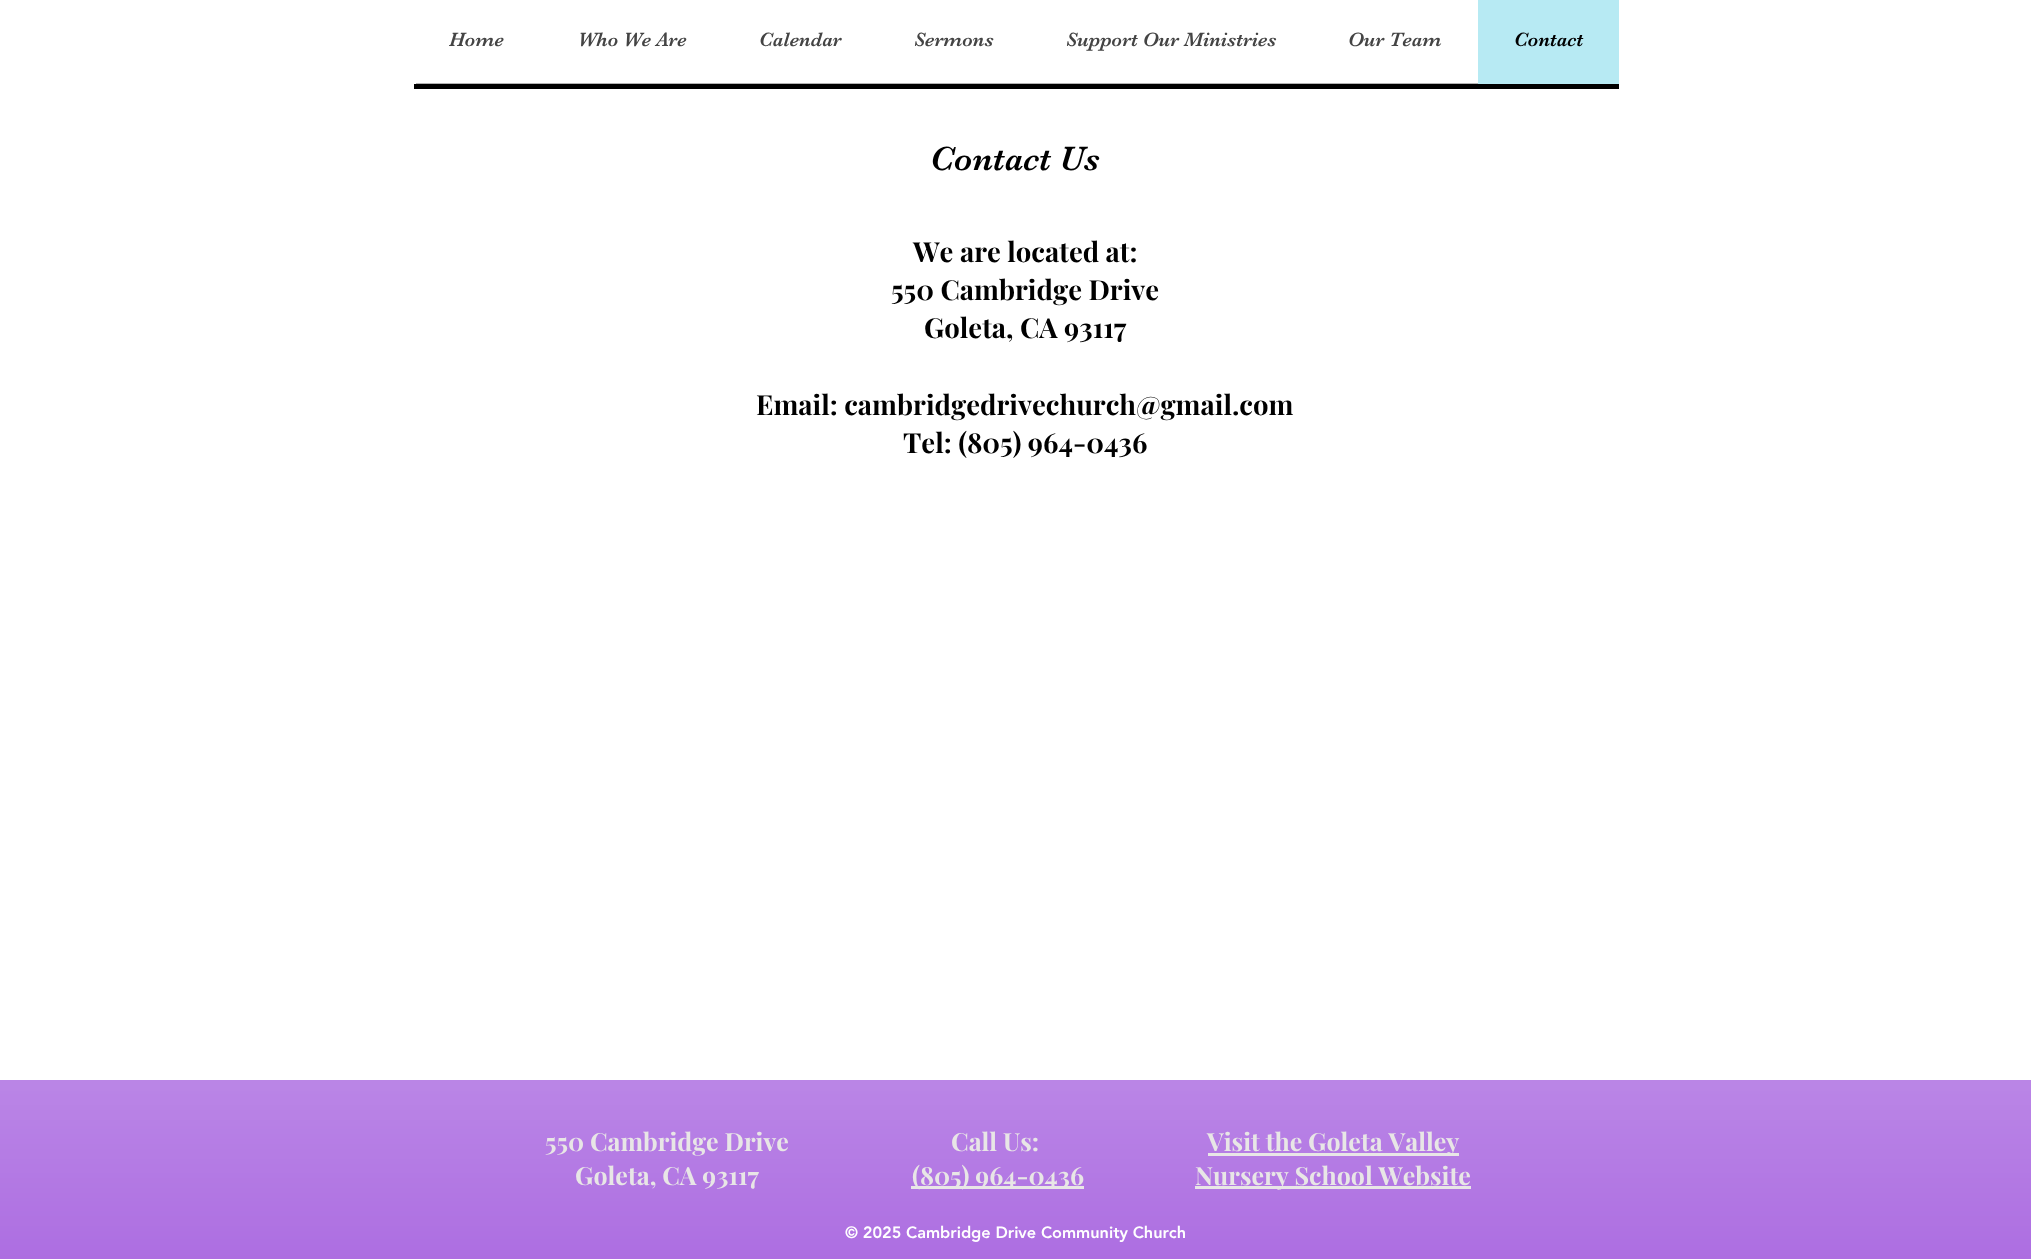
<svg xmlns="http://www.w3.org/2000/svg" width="2031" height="1259">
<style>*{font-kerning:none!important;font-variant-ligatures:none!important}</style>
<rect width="100%" height="100%" fill="#fff"/>
<path d="M414 84v5h1205v-86v81z" fill="#000"/>
<text x="449" y="46" style="font-family:'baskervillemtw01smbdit';font-size:20px;fill:#444">Home</text>
<text x="578" y="46" style="font-family:'baskervillemtw01smbdit';font-size:20px;fill:#444">Who We Are</text>
<text x="759" y="46" style="font-family:'baskervillemtw01smbdit';font-size:20px;fill:#444">Calendar</text>
<text x="914" y="46" style="font-family:'baskervillemtw01smbdit';font-size:20px;fill:#444">Sermons</text>
<text x="1066" y="46" style="font-family:'baskervillemtw01smbdit';font-size:20px;fill:#444">Support Our Ministries</text>
<text x="1348" y="46" style="font-family:'baskervillemtw01smbdit';font-size:20px;fill:#444">Our Team</text>
<rect x="1478" width="141" height="84" fill="#b7eaf3"/>
<text x="1514" y="46" style="font-family:'baskervillemtw01smbdit';font-size:20px;fill:#000">Contact</text>
<rect x="416" y="83" width="1062" height="1" fill="#b3b3b3"/>
<text x="930" y="170" style="font-family:'baskervillemtw01smbdit';font-size:35px;fill:#000">Contact Us</text>
<text x="913" y="262" style="font-family:Playfair Display;font-size:27.5px;font-weight:bold;fill:#000">We are located at:</text>
<text x="891" y="300" style="font-family:Playfair Display;font-size:27.5px;font-weight:bold;fill:#000">550 Cambridge Drive</text>
<text x="924" y="338" style="font-family:Playfair Display;font-size:27.5px;font-weight:bold;fill:#000">Goleta, CA 93117</text>
<text x="756" y="415" style="font-family:Playfair Display;font-size:27.5px;font-weight:bold;fill:#000">Email: cambridgedrivechurch@gmail.com</text>
<text x="903" y="453" style="font-family:Playfair Display;font-size:27.5px;font-weight:bold;fill:#000">Tel: (805) 964-0436</text>
<rect y="1080" width="2031" height="179" fill="#a35cde"/>
<image x="0" y="1080" width="2031" height="179" href="media/1.png"/>
<text x="545" y="1151" style="font-family:Playfair Display;font-size:25px;font-weight:bold;fill:#e8e6e6">550 Cambridge Drive</text>
<text x="575" y="1185" style="font-family:Playfair Display;font-size:25px;font-weight:bold;fill:#e8e6e6">Goleta, CA 93117</text>
<text x="951" y="1151" style="font-family:Playfair Display;font-size:25px;font-weight:bold;fill:#e8e6e6">Call Us:</text>
<rect x="911" y="1186" width="173" height="3" fill="#e8e6e6"/>
<text x="912" y="1185" style="font-family:Playfair Display;font-size:25px;font-weight:bold;fill:#e8e6e6">(805) 964-0436</text>
<rect x="1208" y="1153" width="251" height="3" fill="#e8e6e6"/>
<text x="1207" y="1151" style="font-family:Playfair Display;font-size:25px;font-weight:bold;fill:#e8e6e6">Visit the Goleta Valley</text>
<rect x="1195" y="1186" width="276" height="3" fill="#e8e6e6"/>
<text x="1195" y="1185" style="font-family:Playfair Display;font-size:25px;font-weight:bold;fill:#e8e6e6">Nursery School Website</text>
<text x="845" y="1238" style="font-family:'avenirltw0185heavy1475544';font-size:16.25px;font-weight:900;fill:#fff">© 2025 Cambridge Drive Community Church</text>
</svg>
